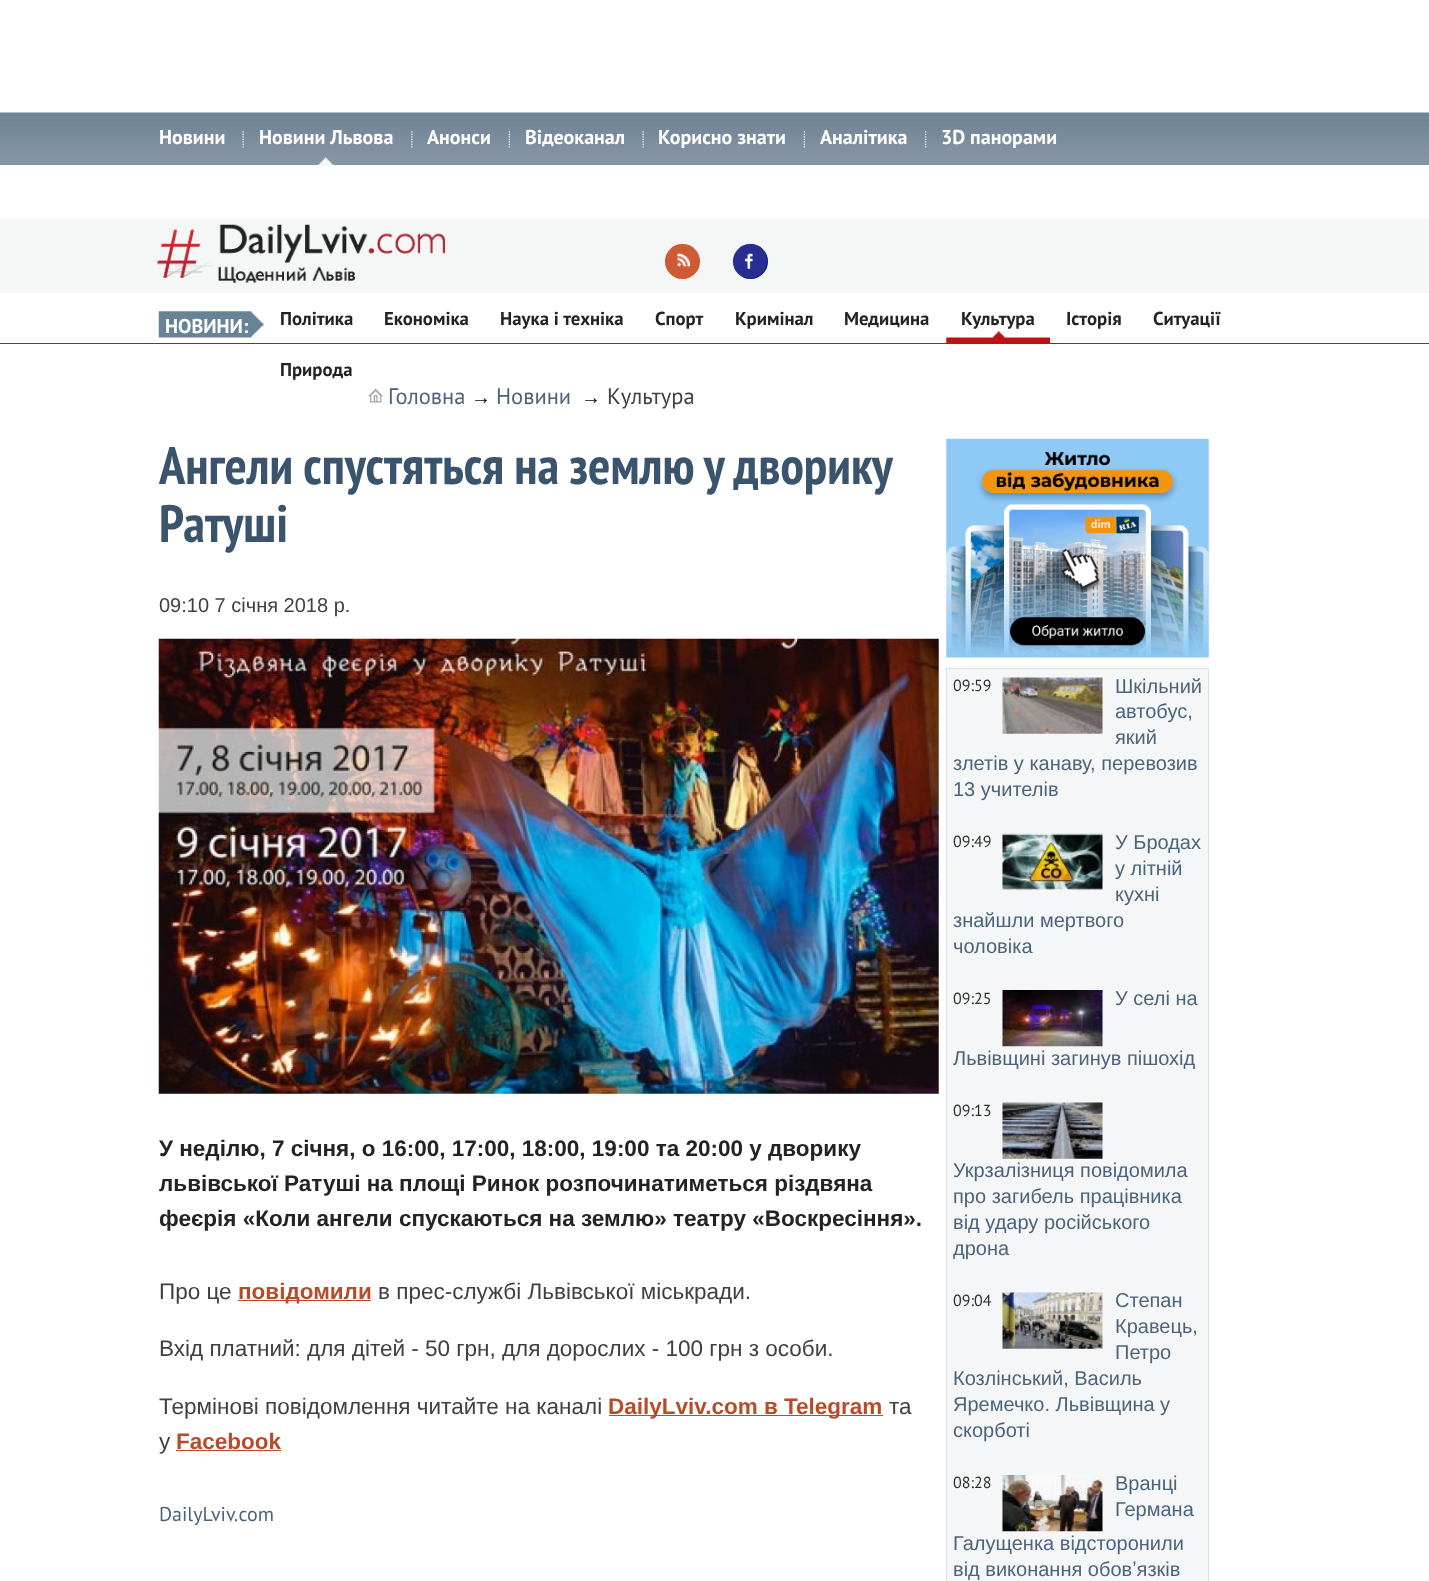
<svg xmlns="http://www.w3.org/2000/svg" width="1429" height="1581">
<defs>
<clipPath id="clip1"><rect x="953" y="1099" width="250" height="170"/></clipPath>
</defs>
<rect width="100%" height="100%" fill="#fff"/>
<image x="0" y="112" width="1429" height="53" href="media/1.png"/>
<text x="159" y="144" style="font-family:PT Sans;font-size:20px;font-weight:bold;fill:#fff">Новини</text>
<image x="242" y="131" width="2" height="17" href="media/2.png"/>
<image x="318" y="157" width="15" height="8" href="media/3.png"/>
<text x="259" y="144" style="font-family:PT Sans;font-size:20px;font-weight:bold;fill:#fff">Новини Львова</text>
<image x="411" y="131" width="2" height="17" href="media/4.png"/>
<text x="427" y="144" style="font-family:PT Sans;font-size:20px;font-weight:bold;fill:#fff">Анонси</text>
<image x="508" y="131" width="2" height="17" href="media/5.png"/>
<text x="525" y="144" style="font-family:PT Sans;font-size:20px;font-weight:bold;fill:#fff">Відеоканал</text>
<image x="642" y="131" width="2" height="17" href="media/2.png"/>
<text x="658" y="144" style="font-family:PT Sans;font-size:20px;font-weight:bold;fill:#fff">Корисно знати</text>
<image x="803" y="131" width="2" height="17" href="media/5.png"/>
<text x="820" y="144" style="font-family:PT Sans;font-size:20px;font-weight:bold;fill:#fff">Аналітика</text>
<image x="925" y="131" width="2" height="17" href="media/6.png"/>
<text x="941" y="144" style="font-family:PT Sans;font-size:20px;font-weight:bold;fill:#fff">3D панорами</text>
<rect y="218" width="1429" height="75" fill="#f5f6f6"/>
<image x="157" y="224" width="288" height="59" href="media/7.png"/>
<circle cx="682.5" cy="261.5" r="17.5" fill="#ff4500"/>
<image x="665" y="243" width="35" height="36" href="media/8.png"/>
<circle cx="750.5" cy="261.5" r="17.5" fill="#00008b"/>
<image x="732" y="243" width="36" height="36" href="media/9.png"/>
<rect y="343" width="1429" height="1" fill="#be1313"/>
<image x="158" y="311" width="106" height="27" href="media/10.png"/>
<text x="165" y="333" style="font-family:PT Sans;font-size:20px;font-weight:bold;fill:#fff">НОВИНИ:</text>
<text x="280" y="325" style="font-family:PT Sans;font-size:18.75px;font-weight:bold;fill:#232323">Політика</text>
<text x="384" y="325" style="font-family:PT Sans;font-size:18.75px;font-weight:bold;fill:#232323">Економіка</text>
<text x="500" y="325" style="font-family:PT Sans;font-size:18.75px;font-weight:bold;fill:#232323">Наука і техніка</text>
<text x="655" y="325" style="font-family:PT Sans;font-size:18.75px;font-weight:bold;fill:#232323">Спорт</text>
<text x="735" y="325" style="font-family:PT Sans;font-size:18.75px;font-weight:bold;fill:#232323">Кримінал</text>
<text x="844" y="325" style="font-family:PT Sans;font-size:18.75px;font-weight:bold;fill:#232323">Медицина</text>
<image x="946" y="331" width="104" height="12" href="media/11.png"/>
<text x="961" y="325" style="font-family:PT Sans;font-size:18.75px;font-weight:bold;fill:#232323">Культура</text>
<text x="1066" y="325" style="font-family:PT Sans;font-size:18.75px;font-weight:bold;fill:#232323">Історія</text>
<text x="1153" y="325" style="font-family:PT Sans;font-size:18.75px;font-weight:bold;fill:#232323">Ситуації</text>
<text x="280" y="376" style="font-family:PT Sans;font-size:18.75px;font-weight:bold;fill:#232323">Природа</text>
<image x="368" y="388" width="15" height="15" href="media/12.png"/>
<text x="388" y="404" style="font-family:PT Sans;font-size:22.5px;fill:#4c647b">Головна</text>
<text x="471" y="404" style="font-family:Liberation Serif;font-size:20px;fill:#000">→</text>
<text x="496" y="404" style="font-family:PT Sans;font-size:22.5px;fill:#4c647b">Новини</text>
<text x="581" y="404" style="font-family:Liberation Serif;font-size:20px;fill:#000">→</text>
<text x="607" y="404" style="font-family:PT Sans;font-size:22.5px;fill:#404040">Культура</text>
<text x="159" y="484" word-spacing="-0.5" style="font-family:PT Sans Narrow;font-size:52.5px;font-weight:bold;fill:#3a546d">Ангели спустяться на землю у дворику</text>
<text x="159" y="542" style="font-family:PT Sans Narrow;font-size:52.5px;font-weight:bold;fill:#3a546d">Ратуші</text>
<text x="159" y="612" style="font-family:Liberation Sans;font-size:20px;fill:#404040">09:10 7 січня 2018 р.</text>
<image x="158" y="638" width="781" height="456" href="media/13.png"/>
<text x="159" y="1156" style="font-family:Liberation Sans;font-size:22.5px;font-weight:bold;fill:#232323">У неділю, 7 січня, о 16:00, 17:00, 18:00, 19:00 та 20:00 у дворику</text>
<text x="159" y="1191" style="font-family:Liberation Sans;font-size:22.5px;font-weight:bold;fill:#232323">львівської Ратуші на площі Ринок розпочинатиметься різдвяна</text>
<text x="159" y="1226" style="font-family:Liberation Sans;font-size:22.5px;font-weight:bold;fill:#232323">феєрія «Коли ангели спускаються на землю» театру «Воскресіння».</text>
<text x="159" y="1299" style="font-family:Liberation Sans;font-size:22.5px;fill:#404040">Про це</text>
<rect x="238" y="1300" width="133" height="1" fill="#b84b2a"/>
<text x="238" y="1299" style="font-family:Liberation Sans;font-size:22.5px;font-weight:bold;fill:#b84b2a">повідомили</text>
<text x="378" y="1299" style="font-family:Liberation Sans;font-size:22.5px;fill:#404040">в прес-службі Львівської міськради.</text>
<text x="159" y="1356" style="font-family:Liberation Sans;font-size:22.5px;fill:#404040">Вхід платний: для дітей - 50 грн, для дорослих - 100 грн з особи.</text>
<text x="159" y="1414" style="font-family:Liberation Sans;font-size:22.5px;fill:#404040">Термінові повідомлення читайте на каналі</text>
<rect x="609" y="1415" width="274" height="1" fill="#b84b2a"/>
<text x="608" y="1414" style="font-family:Liberation Sans;font-size:22.5px;font-weight:bold;fill:#b84b2a">DailyLviv.com в Telegram</text>
<text x="889" y="1414" style="font-family:Liberation Sans;font-size:22.5px;fill:#404040">та</text>
<text x="159" y="1449" style="font-family:Liberation Sans;font-size:22.5px;fill:#404040">у</text>
<text x="176" y="1449" style="font-family:Liberation Sans;font-size:22.5px;font-weight:bold;fill:#b84b2a">Facebook</text>
<rect x="176" y="1450" width="105" height="1" fill="#b84b2a"/>
<text x="159" y="1521" style="font-family:PT Sans;font-size:20px;fill:#4c647b">DailyLviv.com</text>
<image x="946" y="438" width="263" height="220" href="media/14.png"/>
<rect x="946.5" y="668.5" width="262" height="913" fill="#f5f6f8" stroke="#dce0e8"/>
<image x="1002" y="677" width="101" height="57" href="media/15.png"/>
<text x="1115" y="693" style="font-family:Liberation Sans;font-size:20px;fill:#4c647b">Шкільний</text>
<text x="1115" y="718" style="font-family:Liberation Sans;font-size:20px;fill:#4c647b">автобус,</text>
<text x="1115" y="744" style="font-family:Liberation Sans;font-size:20px;fill:#4c647b">який</text>
<text x="953" y="770" style="font-family:Liberation Sans;font-size:20px;fill:#4c647b">злетів у канаву, перевозив</text>
<text x="953" y="796" style="font-family:Liberation Sans;font-size:20px;fill:#4c647b">13 учителів</text>
<text x="953" y="691" style="font-family:PT Sans;font-size:16px;fill:#303030">09:59</text>
<text x="953" y="847" style="font-family:PT Sans;font-size:16px;fill:#303030">09:49</text>
<image x="1002" y="833" width="101" height="57" href="media/16.png"/>
<text x="1115" y="849" style="font-family:Liberation Sans;font-size:20px;fill:#4c647b">У Бродах</text>
<text x="1115" y="875" style="font-family:Liberation Sans;font-size:20px;fill:#4c647b">у літній</text>
<text x="1115" y="901" style="font-family:Liberation Sans;font-size:20px;fill:#4c647b">кухні</text>
<text x="953" y="927" style="font-family:Liberation Sans;font-size:20px;fill:#4c647b">знайшли мертвого</text>
<text x="953" y="953" style="font-family:Liberation Sans;font-size:20px;fill:#4c647b">чоловіка</text>
<text x="1115" y="1005" style="font-family:Liberation Sans;font-size:20px;fill:#4c647b">У селі на</text>
<text x="953" y="1065" style="font-family:Liberation Sans;font-size:20px;fill:#4c647b">Львівщині загинув пішохід</text>
<text x="953" y="1004" style="font-family:PT Sans;font-size:16px;fill:#303030">09:25</text>
<image x="1002" y="990" width="101" height="57" href="media/17.png"/>
<text x="953" y="1116" style="font-family:PT Sans;font-size:16px;fill:#303030">09:13</text>
<image x="1002" y="1102" width="101" height="57" href="media/18.png"/>
<text x="953" y="1177" style="font-family:Liberation Sans;font-size:20px;fill:#4c647b">Укрзалізниця повідомила</text>
<text x="953" y="1203" style="font-family:Liberation Sans;font-size:20px;fill:#4c647b">про загибель працівника</text>
<text x="953" y="1229" style="font-family:Liberation Sans;font-size:20px;fill:#4c647b">від удару російського</text>
<g clip-path="url(#clip1)">
<text x="953" y="1255" style="font-family:Liberation Sans;font-size:20px;fill:#4c647b">дрона</text>
</g>
<image x="1002" y="1292" width="101" height="57" href="media/19.png"/>
<text x="1115" y="1307" style="font-family:Liberation Sans;font-size:20px;fill:#4c647b">Степан</text>
<text x="1115" y="1333" style="font-family:Liberation Sans;font-size:20px;fill:#4c647b">Кравець,</text>
<text x="1115" y="1359" style="font-family:Liberation Sans;font-size:20px;fill:#4c647b">Петро</text>
<text x="953" y="1385" style="font-family:Liberation Sans;font-size:20px;fill:#4c647b">Козлінський, Василь</text>
<text x="953" y="1411" style="font-family:Liberation Sans;font-size:20px;fill:#4c647b">Яремечко. Львівщина у</text>
<text x="953" y="1437" style="font-family:Liberation Sans;font-size:20px;fill:#4c647b">скорботі</text>
<text x="953" y="1306" style="font-family:PT Sans;font-size:16px;fill:#303030">09:04</text>
<text x="1115" y="1490" style="font-family:Liberation Sans;font-size:20px;fill:#4c647b">Вранці</text>
<text x="1115" y="1516" style="font-family:Liberation Sans;font-size:20px;fill:#4c647b">Германа</text>
<text x="953" y="1550" style="font-family:Liberation Sans;font-size:20px;fill:#4c647b">Галущенка відсторонили</text>
<text x="953" y="1576" style="font-family:Liberation Sans;font-size:20px;fill:#4c647b">від виконання обовʼязків</text>
<text x="953" y="1488" style="font-family:PT Sans;font-size:16px;fill:#303030">08:28</text>
<image x="1002" y="1475" width="101" height="57" href="media/20.png"/>
</svg>
